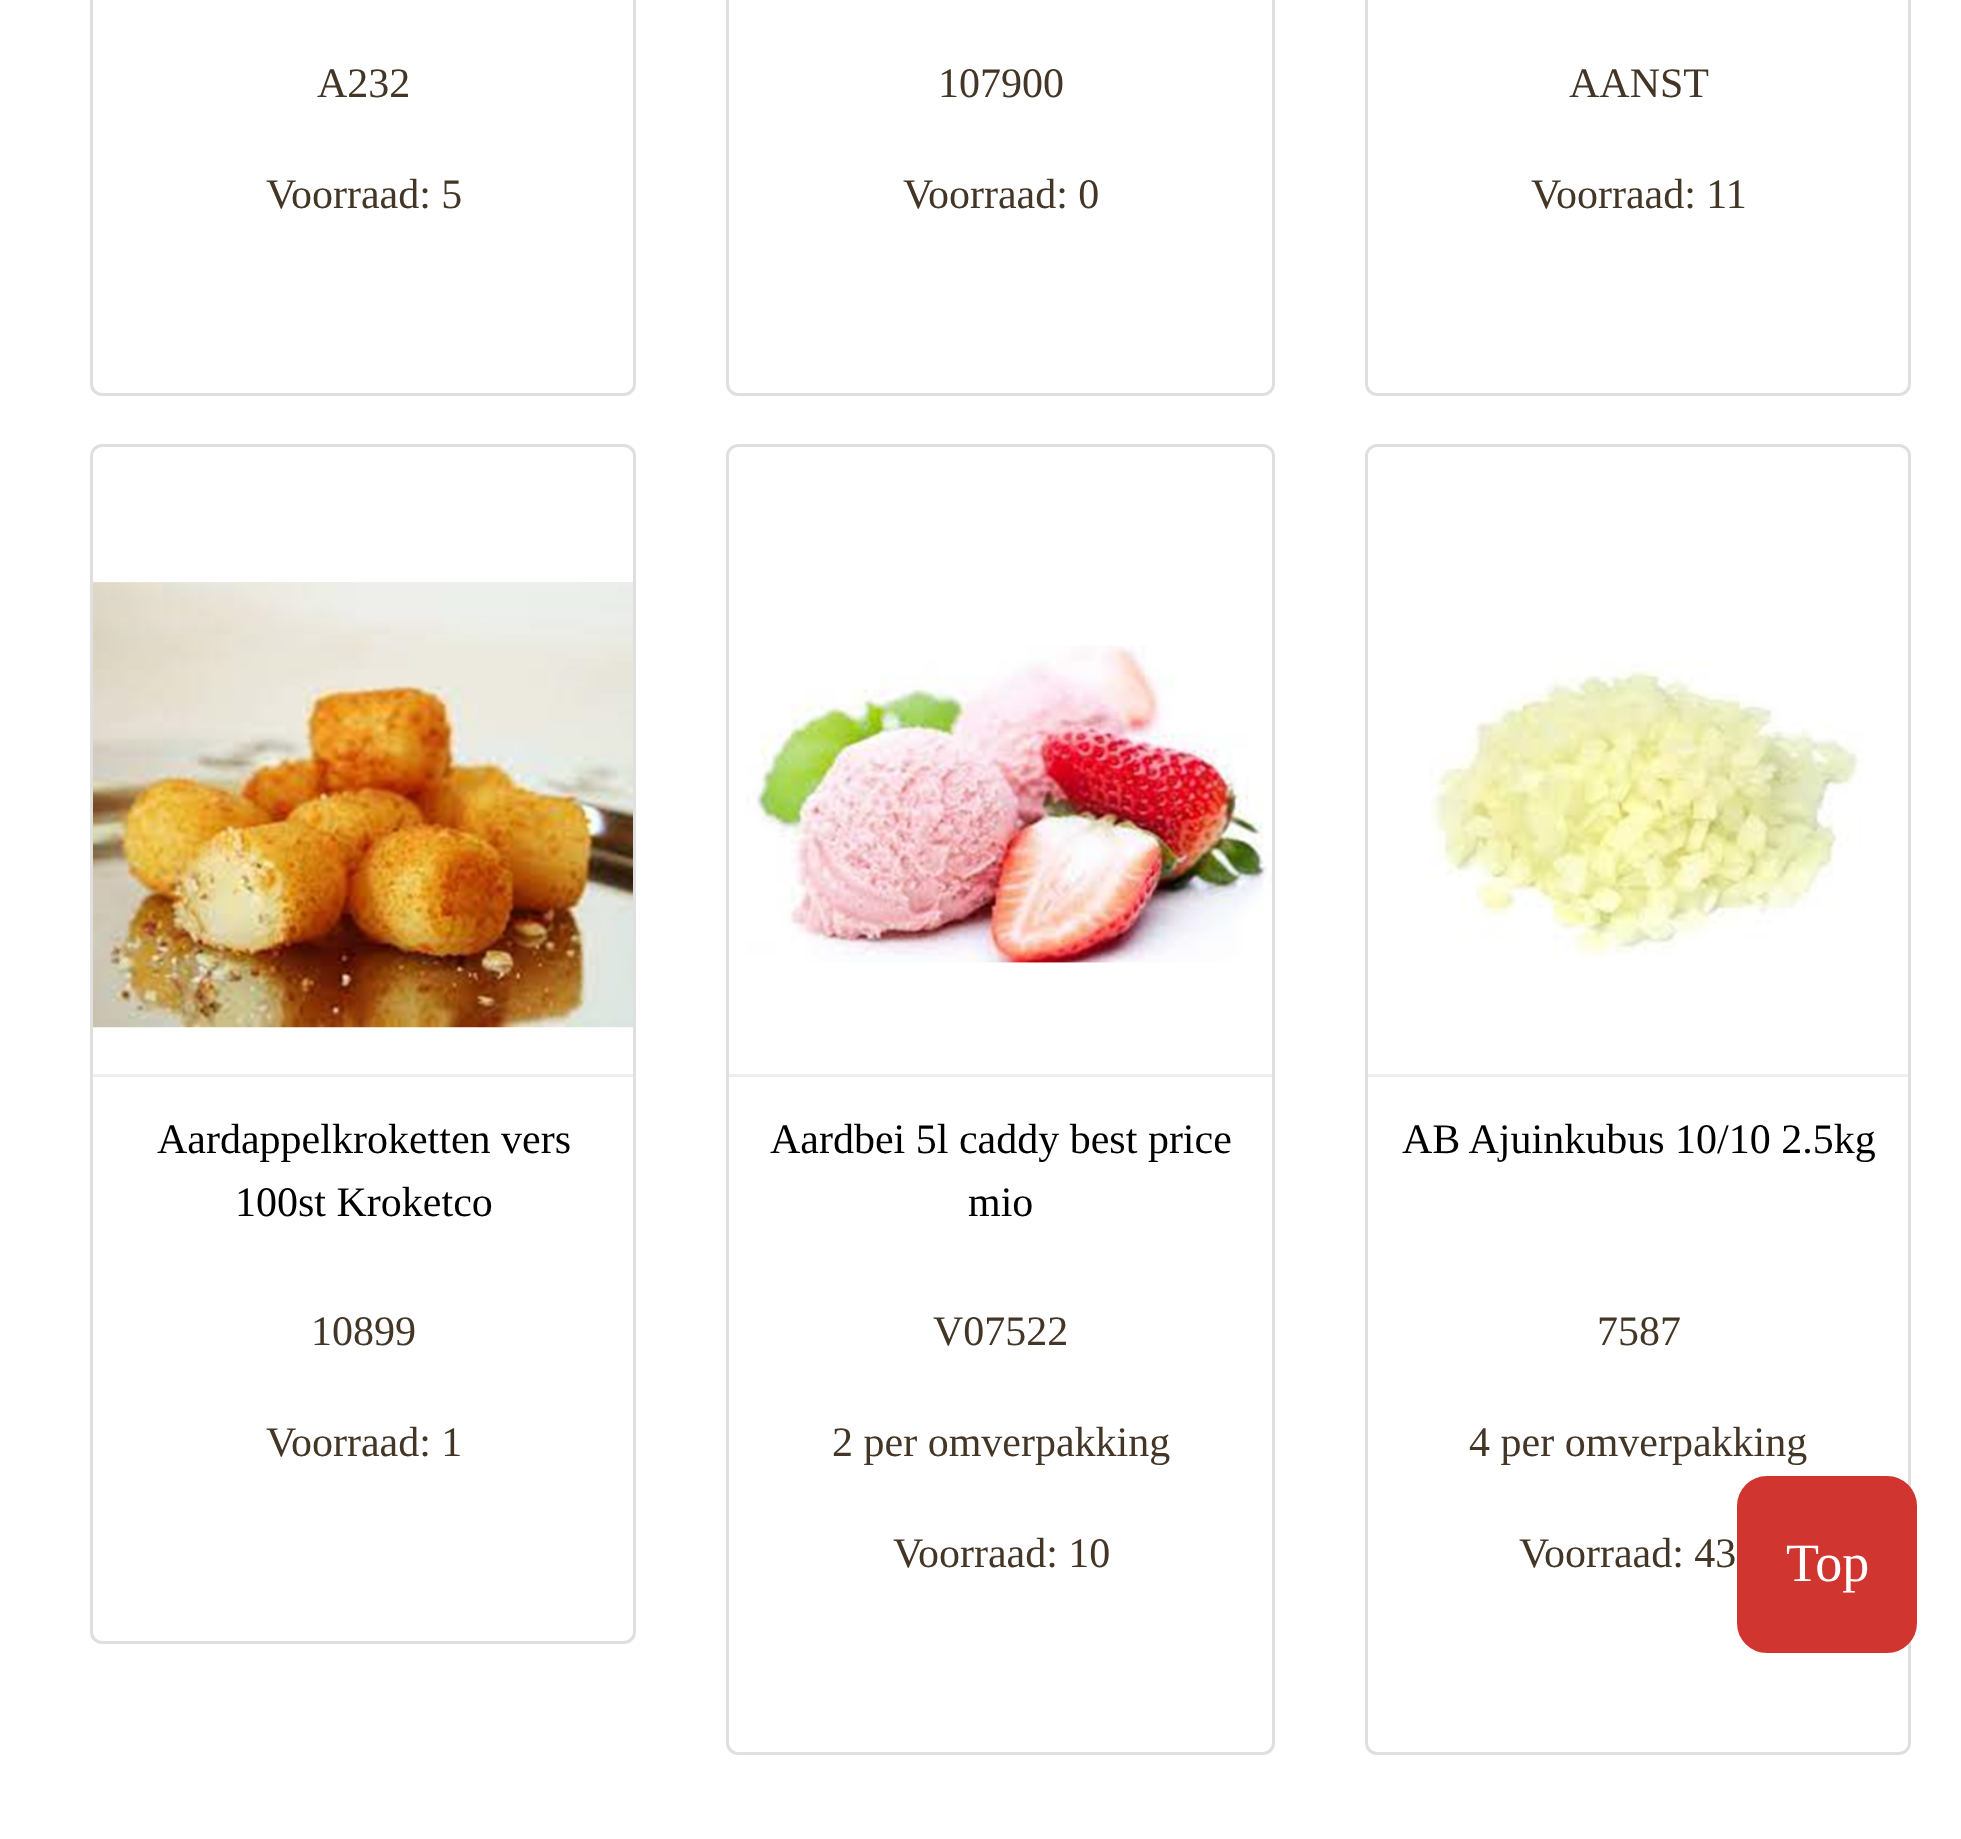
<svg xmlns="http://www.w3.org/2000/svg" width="1961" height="1839">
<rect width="100%" height="100%" fill="#fff"/>
<rect x="91.5" y="-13.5" width="543" height="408" rx="10.5" fill="none" stroke="#dfdfdf" stroke-width="3"/>
<text x="317" y="97" style="font-family:Liberation Serif;font-size:42px;fill:#433627">A232</text>
<text x="266" y="208" style="font-family:Liberation Serif;font-size:42px;fill:#433627">Voorraad: 5</text>
<rect x="727.5" y="-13.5" width="546" height="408" rx="10.5" fill="none" stroke="#dfdfdf" stroke-width="3"/>
<text x="938" y="97" style="font-family:Liberation Serif;font-size:42px;fill:#433627">107900</text>
<text x="903" y="208" style="font-family:Liberation Serif;font-size:42px;fill:#433627">Voorraad: 0</text>
<rect x="1366.5" y="-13.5" width="543" height="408" rx="10.5" fill="none" stroke="#dfdfdf" stroke-width="3"/>
<text x="1569" y="97" style="font-family:Liberation Serif;font-size:42px;fill:#433627">AANST</text>
<text x="1531" y="208" style="font-family:Liberation Serif;font-size:42px;fill:#433627">Voorraad: 11</text>
<rect x="91.5" y="445.5" width="543" height="1197" rx="10.5" fill="none" stroke="#dfdfdf" stroke-width="3"/>
<image x="93" y="582" width="540" height="446" href="media/1.png"/>
<rect x="93" y="1074" width="540" height="3" fill="#eee"/>
<text x="157" y="1153" style="font-family:Liberation Serif;font-size:42px;fill:#000">Aardappelkroketten vers</text>
<text x="235" y="1216" style="font-family:Liberation Serif;font-size:42px;fill:#000">100st Kroketco</text>
<text x="311" y="1345" style="font-family:Liberation Serif;font-size:42px;fill:#433627">10899</text>
<text x="266" y="1456" style="font-family:Liberation Serif;font-size:42px;fill:#433627">Voorraad: 1</text>
<rect x="727.5" y="445.5" width="546" height="1308" rx="10.5" fill="none" stroke="#dfdfdf" stroke-width="3"/>
<image x="746" y="645" width="526" height="318" href="media/2.png"/>
<rect x="729" y="1074" width="543" height="3" fill="#eee"/>
<text x="770" y="1153" style="font-family:Liberation Serif;font-size:42px;fill:#000">Aardbei 5l caddy best price</text>
<text x="968" y="1216" style="font-family:Liberation Serif;font-size:42px;fill:#000">mio</text>
<text x="933" y="1345" style="font-family:Liberation Serif;font-size:42px;fill:#433627">V07522</text>
<text x="832" y="1456" style="font-family:Liberation Serif;font-size:42px;fill:#433627">2 per omverpakking</text>
<text x="893" y="1567" style="font-family:Liberation Serif;font-size:42px;fill:#433627">Voorraad: 10</text>
<rect x="1366.5" y="445.5" width="543" height="1308" rx="10.5" fill="none" stroke="#dfdfdf" stroke-width="3"/>
<image x="1429" y="661" width="434" height="297" href="media/3.png"/>
<rect x="1368" y="1074" width="540" height="3" fill="#eee"/>
<text x="1402" y="1153" style="font-family:Liberation Serif;font-size:42px;fill:#000">AB Ajuinkubus 10/10 2.5kg</text>
<text x="1597" y="1345" style="font-family:Liberation Serif;font-size:42px;fill:#433627">7587</text>
<text x="1469" y="1456" style="font-family:Liberation Serif;font-size:42px;fill:#433627">4 per omverpakking</text>
<text x="1519" y="1567" style="font-family:Liberation Serif;font-size:42px;fill:#433627">Voorraad: 43</text>
<rect x="1738.5" y="1477.5" width="177" height="174" rx="28.5" fill="#d13530" stroke="#d13530" stroke-width="3"/>
<text x="1786" y="1581" style="font-family:Liberation Serif;font-size:54px;fill:#fff">Top</text>
</svg>
